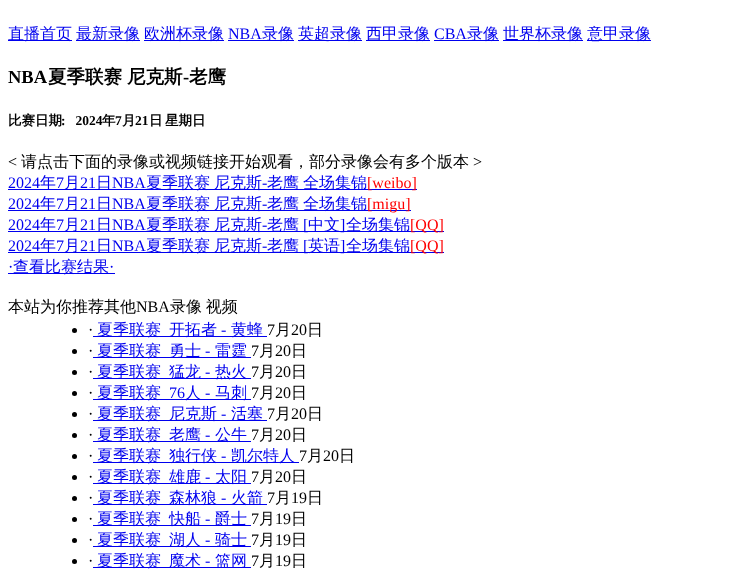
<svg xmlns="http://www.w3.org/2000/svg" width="736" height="577">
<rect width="100%" height="100%" fill="#fff"/>
<rect x="8" y="40" width="64" height="1" fill="#00e"/>
<text x="8" y="39" style="font-family:WenQuanYi Zen Hei;font-size:16px;font-weight:500;fill:#00e">直播首页</text>
<rect x="76" y="40" width="64" height="1" fill="#00e"/>
<text x="76" y="39" style="font-family:WenQuanYi Zen Hei;font-size:16px;font-weight:500;fill:#00e">最新录像</text>
<rect x="144" y="40" width="80" height="1" fill="#00e"/>
<text x="144" y="39" style="font-family:WenQuanYi Zen Hei;font-size:16px;font-weight:500;fill:#00e">欧洲杯录像</text>
<text x="228" y="39" style="font-family:Liberation Serif;font-size:16px;fill:#00e">NBA</text>
<rect x="228" y="40" width="66" height="1" fill="#00e"/>
<text x="262" y="39" style="font-family:WenQuanYi Zen Hei;font-size:16px;font-weight:500;fill:#00e">录像</text>
<rect x="298" y="40" width="64" height="1" fill="#00e"/>
<text x="298" y="39" style="font-family:WenQuanYi Zen Hei;font-size:16px;font-weight:500;fill:#00e">英超录像</text>
<rect x="366" y="40" width="64" height="1" fill="#00e"/>
<text x="366" y="39" style="font-family:WenQuanYi Zen Hei;font-size:16px;font-weight:500;fill:#00e">西甲录像</text>
<text x="434" y="39" style="font-family:Liberation Serif;font-size:16px;fill:#00e">CBA</text>
<rect x="434" y="40" width="65" height="1" fill="#00e"/>
<text x="467" y="39" style="font-family:WenQuanYi Zen Hei;font-size:16px;font-weight:500;fill:#00e">录像</text>
<rect x="503" y="40" width="80" height="1" fill="#00e"/>
<text x="503" y="39" style="font-family:WenQuanYi Zen Hei;font-size:16px;font-weight:500;fill:#00e">世界杯录像</text>
<rect x="587" y="40" width="64" height="1" fill="#00e"/>
<text x="587" y="39" style="font-family:WenQuanYi Zen Hei;font-size:16px;font-weight:500;fill:#00e">意甲录像</text>
<text x="8" y="83" style="font-family:Liberation Serif;font-size:18.5px;font-weight:bold;fill:#000">NBA</text>
<text x="48" y="83" style="font-family:WenQuanYi Zen Hei;font-size:18.5px;font-weight:bold;fill:#000">夏季联赛</text>
<text x="127" y="83" style="font-family:WenQuanYi Zen Hei;font-size:18.5px;font-weight:bold;fill:#000">尼克斯</text>
<text x="183" y="83" style="font-family:Liberation Serif;font-size:18.5px;font-weight:bold;fill:#000">-</text>
<text x="189" y="83" style="font-family:WenQuanYi Zen Hei;font-size:18.5px;font-weight:bold;fill:#000">老鹰</text>
<text x="8" y="125" style="font-family:WenQuanYi Zen Hei;font-size:13.5px;font-weight:bold;fill:#000">比赛日期</text>
<text x="61" y="125" style="font-family:Liberation Serif;font-size:13.5px;font-weight:bold;fill:#000" xml:space="preserve">:   2024</text>
<text x="102" y="125" style="font-family:WenQuanYi Zen Hei;font-size:13.5px;font-weight:bold;fill:#000">年</text>
<text x="115" y="125" style="font-family:Liberation Serif;font-size:13.5px;font-weight:bold;fill:#000">7</text>
<text x="122" y="125" style="font-family:WenQuanYi Zen Hei;font-size:13.5px;font-weight:bold;fill:#000">月</text>
<text x="135" y="125" style="font-family:Liberation Serif;font-size:13.5px;font-weight:bold;fill:#000">21</text>
<text x="149" y="125" style="font-family:WenQuanYi Zen Hei;font-size:13.5px;font-weight:bold;fill:#000">日</text>
<text x="165" y="125" style="font-family:WenQuanYi Zen Hei;font-size:13.5px;font-weight:bold;fill:#000">星期日</text>
<text x="8" y="167" style="font-family:Liberation Serif;font-size:16px;fill:#000">&lt;</text>
<text x="21" y="167" style="font-family:WenQuanYi Zen Hei;font-size:16px;font-weight:500;fill:#000">请点击下面的录像或视频链接开始观看，部分录像会有多个版本</text>
<text x="473" y="167" style="font-family:Liberation Serif;font-size:16px;fill:#000">&gt;</text>
<text x="8" y="188" style="font-family:Liberation Serif;font-size:16px;fill:#00e">2024</text>
<rect x="8" y="189" width="409" height="1" fill="#00e"/>
<text x="40" y="188" style="font-family:WenQuanYi Zen Hei;font-size:16px;font-weight:500;fill:#00e">年</text>
<text x="56" y="188" style="font-family:Liberation Serif;font-size:16px;fill:#00e">7</text>
<text x="64" y="188" style="font-family:WenQuanYi Zen Hei;font-size:16px;font-weight:500;fill:#00e">月</text>
<text x="80" y="188" style="font-family:Liberation Serif;font-size:16px;fill:#00e">21</text>
<text x="96" y="188" style="font-family:WenQuanYi Zen Hei;font-size:16px;font-weight:500;fill:#00e">日</text>
<text x="112" y="188" style="font-family:Liberation Serif;font-size:16px;fill:#00e">NBA</text>
<text x="146" y="188" style="font-family:WenQuanYi Zen Hei;font-size:16px;font-weight:500;fill:#00e">夏季联赛</text>
<text x="214" y="188" style="font-family:WenQuanYi Zen Hei;font-size:16px;font-weight:500;fill:#00e">尼克斯</text>
<text x="262" y="188" style="font-family:Liberation Serif;font-size:16px;fill:#00e">-</text>
<text x="267" y="188" style="font-family:WenQuanYi Zen Hei;font-size:16px;font-weight:500;fill:#00e">老鹰</text>
<text x="303" y="188" style="font-family:WenQuanYi Zen Hei;font-size:16px;font-weight:500;fill:#00e">全场集锦</text>
<text x="367" y="188" style="font-family:Liberation Serif;font-size:16px;fill:#f00">[weibo]</text>
<text x="8" y="209" style="font-family:Liberation Serif;font-size:16px;fill:#00e">2024</text>
<rect x="8" y="210" width="403" height="1" fill="#00e"/>
<text x="40" y="209" style="font-family:WenQuanYi Zen Hei;font-size:16px;font-weight:500;fill:#00e">年</text>
<text x="56" y="209" style="font-family:Liberation Serif;font-size:16px;fill:#00e">7</text>
<text x="64" y="209" style="font-family:WenQuanYi Zen Hei;font-size:16px;font-weight:500;fill:#00e">月</text>
<text x="80" y="209" style="font-family:Liberation Serif;font-size:16px;fill:#00e">21</text>
<text x="96" y="209" style="font-family:WenQuanYi Zen Hei;font-size:16px;font-weight:500;fill:#00e">日</text>
<text x="112" y="209" style="font-family:Liberation Serif;font-size:16px;fill:#00e">NBA</text>
<text x="146" y="209" style="font-family:WenQuanYi Zen Hei;font-size:16px;font-weight:500;fill:#00e">夏季联赛</text>
<text x="214" y="209" style="font-family:WenQuanYi Zen Hei;font-size:16px;font-weight:500;fill:#00e">尼克斯</text>
<text x="262" y="209" style="font-family:Liberation Serif;font-size:16px;fill:#00e">-</text>
<text x="267" y="209" style="font-family:WenQuanYi Zen Hei;font-size:16px;font-weight:500;fill:#00e">老鹰</text>
<text x="303" y="209" style="font-family:WenQuanYi Zen Hei;font-size:16px;font-weight:500;fill:#00e">全场集锦</text>
<text x="367" y="209" style="font-family:Liberation Serif;font-size:16px;fill:#f00">[migu]</text>
<text x="8" y="230" style="font-family:Liberation Serif;font-size:16px;fill:#00e">2024</text>
<rect x="8" y="231" width="436" height="1" fill="#00e"/>
<text x="40" y="230" style="font-family:WenQuanYi Zen Hei;font-size:16px;font-weight:500;fill:#00e">年</text>
<text x="56" y="230" style="font-family:Liberation Serif;font-size:16px;fill:#00e">7</text>
<text x="64" y="230" style="font-family:WenQuanYi Zen Hei;font-size:16px;font-weight:500;fill:#00e">月</text>
<text x="80" y="230" style="font-family:Liberation Serif;font-size:16px;fill:#00e">21</text>
<text x="96" y="230" style="font-family:WenQuanYi Zen Hei;font-size:16px;font-weight:500;fill:#00e">日</text>
<text x="112" y="230" style="font-family:Liberation Serif;font-size:16px;fill:#00e">NBA</text>
<text x="146" y="230" style="font-family:WenQuanYi Zen Hei;font-size:16px;font-weight:500;fill:#00e">夏季联赛</text>
<text x="214" y="230" style="font-family:WenQuanYi Zen Hei;font-size:16px;font-weight:500;fill:#00e">尼克斯</text>
<text x="262" y="230" style="font-family:Liberation Serif;font-size:16px;fill:#00e">-</text>
<text x="267" y="230" style="font-family:WenQuanYi Zen Hei;font-size:16px;font-weight:500;fill:#00e">老鹰</text>
<text x="303" y="230" style="font-family:Liberation Serif;font-size:16px;fill:#00e">[</text>
<text x="308" y="230" style="font-family:WenQuanYi Zen Hei;font-size:16px;font-weight:500;fill:#00e">中文</text>
<text x="340" y="230" style="font-family:Liberation Serif;font-size:16px;fill:#00e">]</text>
<text x="346" y="230" style="font-family:WenQuanYi Zen Hei;font-size:16px;font-weight:500;fill:#00e">全场集锦</text>
<text x="410" y="230" style="font-family:Liberation Serif;font-size:16px;fill:#f00">[QQ]</text>
<text x="8" y="251" style="font-family:Liberation Serif;font-size:16px;fill:#00e">2024</text>
<rect x="8" y="252" width="436" height="1" fill="#00e"/>
<text x="40" y="251" style="font-family:WenQuanYi Zen Hei;font-size:16px;font-weight:500;fill:#00e">年</text>
<text x="56" y="251" style="font-family:Liberation Serif;font-size:16px;fill:#00e">7</text>
<text x="64" y="251" style="font-family:WenQuanYi Zen Hei;font-size:16px;font-weight:500;fill:#00e">月</text>
<text x="80" y="251" style="font-family:Liberation Serif;font-size:16px;fill:#00e">21</text>
<text x="96" y="251" style="font-family:WenQuanYi Zen Hei;font-size:16px;font-weight:500;fill:#00e">日</text>
<text x="112" y="251" style="font-family:Liberation Serif;font-size:16px;fill:#00e">NBA</text>
<text x="146" y="251" style="font-family:WenQuanYi Zen Hei;font-size:16px;font-weight:500;fill:#00e">夏季联赛</text>
<text x="214" y="251" style="font-family:WenQuanYi Zen Hei;font-size:16px;font-weight:500;fill:#00e">尼克斯</text>
<text x="262" y="251" style="font-family:Liberation Serif;font-size:16px;fill:#00e">-</text>
<text x="267" y="251" style="font-family:WenQuanYi Zen Hei;font-size:16px;font-weight:500;fill:#00e">老鹰</text>
<text x="303" y="251" style="font-family:Liberation Serif;font-size:16px;fill:#00e">[</text>
<text x="308" y="251" style="font-family:WenQuanYi Zen Hei;font-size:16px;font-weight:500;fill:#00e">英语</text>
<text x="340" y="251" style="font-family:Liberation Serif;font-size:16px;fill:#00e">]</text>
<text x="346" y="251" style="font-family:WenQuanYi Zen Hei;font-size:16px;font-weight:500;fill:#00e">全场集锦</text>
<text x="410" y="251" style="font-family:Liberation Serif;font-size:16px;fill:#f00">[QQ]</text>
<text x="8" y="272" style="font-family:Liberation Serif;font-size:16px;fill:#00e">·</text>
<rect x="8" y="273" width="107" height="1" fill="#00e"/>
<text x="13" y="272" style="font-family:WenQuanYi Zen Hei;font-size:16px;font-weight:500;fill:#00e">查看比赛结果</text>
<text x="109" y="272" style="font-family:Liberation Serif;font-size:16px;fill:#00e">·</text>
<text x="8" y="312" style="font-family:WenQuanYi Zen Hei;font-size:16px;font-weight:500;fill:#000">本站为你推荐其他</text>
<text x="136" y="312" style="font-family:Liberation Serif;font-size:16px;fill:#000">NBA</text>
<text x="170" y="312" word-spacing="-1" style="font-family:WenQuanYi Zen Hei;font-size:16px;font-weight:500;fill:#000">录像 视频</text>
<circle cx="74.5" cy="330.5" r="2.5" fill="#000"/>
<text x="88" y="335" style="font-family:Liberation Serif;font-size:16px;fill:#000">·</text>
<rect x="93" y="336" width="174" height="1" fill="#00e"/>
<text x="97" y="335" style="font-family:WenQuanYi Zen Hei;font-size:16px;font-weight:500;fill:#00e">夏季联赛</text>
<text x="169" y="335" style="font-family:WenQuanYi Zen Hei;font-size:16px;font-weight:500;fill:#00e">开拓者</text>
<text x="221" y="335" style="font-family:Liberation Serif;font-size:16px;fill:#00e">-</text>
<text x="231" y="335" style="font-family:WenQuanYi Zen Hei;font-size:16px;font-weight:500;fill:#00e">黄蜂</text>
<text x="267" y="335" style="font-family:Liberation Serif;font-size:16px;fill:#000">7</text>
<text x="275" y="335" style="font-family:WenQuanYi Zen Hei;font-size:16px;font-weight:500;fill:#000">月</text>
<text x="291" y="335" style="font-family:Liberation Serif;font-size:16px;fill:#000">20</text>
<text x="307" y="335" style="font-family:WenQuanYi Zen Hei;font-size:16px;font-weight:500;fill:#000">日</text>
<circle cx="74.5" cy="351.5" r="2.5" fill="#000"/>
<text x="88" y="356" style="font-family:Liberation Serif;font-size:16px;fill:#000">·</text>
<rect x="93" y="357" width="158" height="1" fill="#00e"/>
<text x="97" y="356" style="font-family:WenQuanYi Zen Hei;font-size:16px;font-weight:500;fill:#00e">夏季联赛</text>
<text x="169" y="356" style="font-family:WenQuanYi Zen Hei;font-size:16px;font-weight:500;fill:#00e">勇士</text>
<text x="205" y="356" style="font-family:Liberation Serif;font-size:16px;fill:#00e">-</text>
<text x="215" y="356" style="font-family:WenQuanYi Zen Hei;font-size:16px;font-weight:500;fill:#00e">雷霆</text>
<text x="251" y="356" style="font-family:Liberation Serif;font-size:16px;fill:#000">7</text>
<text x="259" y="356" style="font-family:WenQuanYi Zen Hei;font-size:16px;font-weight:500;fill:#000">月</text>
<text x="275" y="356" style="font-family:Liberation Serif;font-size:16px;fill:#000">20</text>
<text x="291" y="356" style="font-family:WenQuanYi Zen Hei;font-size:16px;font-weight:500;fill:#000">日</text>
<circle cx="74.5" cy="372.5" r="2.5" fill="#000"/>
<text x="88" y="377" style="font-family:Liberation Serif;font-size:16px;fill:#000">·</text>
<rect x="93" y="378" width="158" height="1" fill="#00e"/>
<text x="97" y="377" style="font-family:WenQuanYi Zen Hei;font-size:16px;font-weight:500;fill:#00e">夏季联赛</text>
<text x="169" y="377" style="font-family:WenQuanYi Zen Hei;font-size:16px;font-weight:500;fill:#00e">猛龙</text>
<text x="205" y="377" style="font-family:Liberation Serif;font-size:16px;fill:#00e">-</text>
<text x="215" y="377" style="font-family:WenQuanYi Zen Hei;font-size:16px;font-weight:500;fill:#00e">热火</text>
<text x="251" y="377" style="font-family:Liberation Serif;font-size:16px;fill:#000">7</text>
<text x="259" y="377" style="font-family:WenQuanYi Zen Hei;font-size:16px;font-weight:500;fill:#000">月</text>
<text x="275" y="377" style="font-family:Liberation Serif;font-size:16px;fill:#000">20</text>
<text x="291" y="377" style="font-family:WenQuanYi Zen Hei;font-size:16px;font-weight:500;fill:#000">日</text>
<circle cx="74.5" cy="393.5" r="2.5" fill="#000"/>
<text x="88" y="398" style="font-family:Liberation Serif;font-size:16px;fill:#000">·</text>
<rect x="93" y="399" width="158" height="1" fill="#00e"/>
<text x="97" y="398" style="font-family:WenQuanYi Zen Hei;font-size:16px;font-weight:500;fill:#00e">夏季联赛</text>
<text x="169" y="398" style="font-family:Liberation Serif;font-size:16px;fill:#00e">76</text>
<text x="185" y="398" style="font-family:WenQuanYi Zen Hei;font-size:16px;font-weight:500;fill:#00e">人</text>
<text x="205" y="398" style="font-family:Liberation Serif;font-size:16px;fill:#00e">-</text>
<text x="215" y="398" style="font-family:WenQuanYi Zen Hei;font-size:16px;font-weight:500;fill:#00e">马刺</text>
<text x="251" y="398" style="font-family:Liberation Serif;font-size:16px;fill:#000">7</text>
<text x="259" y="398" style="font-family:WenQuanYi Zen Hei;font-size:16px;font-weight:500;fill:#000">月</text>
<text x="275" y="398" style="font-family:Liberation Serif;font-size:16px;fill:#000">20</text>
<text x="291" y="398" style="font-family:WenQuanYi Zen Hei;font-size:16px;font-weight:500;fill:#000">日</text>
<circle cx="74.5" cy="414.5" r="2.5" fill="#000"/>
<text x="88" y="419" style="font-family:Liberation Serif;font-size:16px;fill:#000">·</text>
<rect x="93" y="420" width="174" height="1" fill="#00e"/>
<text x="97" y="419" style="font-family:WenQuanYi Zen Hei;font-size:16px;font-weight:500;fill:#00e">夏季联赛</text>
<text x="169" y="419" style="font-family:WenQuanYi Zen Hei;font-size:16px;font-weight:500;fill:#00e">尼克斯</text>
<text x="221" y="419" style="font-family:Liberation Serif;font-size:16px;fill:#00e">-</text>
<text x="231" y="419" style="font-family:WenQuanYi Zen Hei;font-size:16px;font-weight:500;fill:#00e">活塞</text>
<text x="267" y="419" style="font-family:Liberation Serif;font-size:16px;fill:#000">7</text>
<text x="275" y="419" style="font-family:WenQuanYi Zen Hei;font-size:16px;font-weight:500;fill:#000">月</text>
<text x="291" y="419" style="font-family:Liberation Serif;font-size:16px;fill:#000">20</text>
<text x="307" y="419" style="font-family:WenQuanYi Zen Hei;font-size:16px;font-weight:500;fill:#000">日</text>
<circle cx="74.5" cy="435.5" r="2.5" fill="#000"/>
<text x="88" y="440" style="font-family:Liberation Serif;font-size:16px;fill:#000">·</text>
<rect x="93" y="441" width="158" height="1" fill="#00e"/>
<text x="97" y="440" style="font-family:WenQuanYi Zen Hei;font-size:16px;font-weight:500;fill:#00e">夏季联赛</text>
<text x="169" y="440" style="font-family:WenQuanYi Zen Hei;font-size:16px;font-weight:500;fill:#00e">老鹰</text>
<text x="205" y="440" style="font-family:Liberation Serif;font-size:16px;fill:#00e">-</text>
<text x="215" y="440" style="font-family:WenQuanYi Zen Hei;font-size:16px;font-weight:500;fill:#00e">公牛</text>
<text x="251" y="440" style="font-family:Liberation Serif;font-size:16px;fill:#000">7</text>
<text x="259" y="440" style="font-family:WenQuanYi Zen Hei;font-size:16px;font-weight:500;fill:#000">月</text>
<text x="275" y="440" style="font-family:Liberation Serif;font-size:16px;fill:#000">20</text>
<text x="291" y="440" style="font-family:WenQuanYi Zen Hei;font-size:16px;font-weight:500;fill:#000">日</text>
<circle cx="74.5" cy="456.5" r="2.5" fill="#000"/>
<text x="88" y="461" style="font-family:Liberation Serif;font-size:16px;fill:#000">·</text>
<rect x="93" y="462" width="206" height="1" fill="#00e"/>
<text x="97" y="461" style="font-family:WenQuanYi Zen Hei;font-size:16px;font-weight:500;fill:#00e">夏季联赛</text>
<text x="169" y="461" style="font-family:WenQuanYi Zen Hei;font-size:16px;font-weight:500;fill:#00e">独行侠</text>
<text x="221" y="461" style="font-family:Liberation Serif;font-size:16px;fill:#00e">-</text>
<text x="231" y="461" style="font-family:WenQuanYi Zen Hei;font-size:16px;font-weight:500;fill:#00e">凯尔特人</text>
<text x="299" y="461" style="font-family:Liberation Serif;font-size:16px;fill:#000">7</text>
<text x="307" y="461" style="font-family:WenQuanYi Zen Hei;font-size:16px;font-weight:500;fill:#000">月</text>
<text x="323" y="461" style="font-family:Liberation Serif;font-size:16px;fill:#000">20</text>
<text x="339" y="461" style="font-family:WenQuanYi Zen Hei;font-size:16px;font-weight:500;fill:#000">日</text>
<circle cx="74.5" cy="477.5" r="2.5" fill="#000"/>
<text x="88" y="482" style="font-family:Liberation Serif;font-size:16px;fill:#000">·</text>
<rect x="93" y="483" width="158" height="1" fill="#00e"/>
<text x="97" y="482" style="font-family:WenQuanYi Zen Hei;font-size:16px;font-weight:500;fill:#00e">夏季联赛</text>
<text x="169" y="482" style="font-family:WenQuanYi Zen Hei;font-size:16px;font-weight:500;fill:#00e">雄鹿</text>
<text x="205" y="482" style="font-family:Liberation Serif;font-size:16px;fill:#00e">-</text>
<text x="215" y="482" style="font-family:WenQuanYi Zen Hei;font-size:16px;font-weight:500;fill:#00e">太阳</text>
<text x="251" y="482" style="font-family:Liberation Serif;font-size:16px;fill:#000">7</text>
<text x="259" y="482" style="font-family:WenQuanYi Zen Hei;font-size:16px;font-weight:500;fill:#000">月</text>
<text x="275" y="482" style="font-family:Liberation Serif;font-size:16px;fill:#000">20</text>
<text x="291" y="482" style="font-family:WenQuanYi Zen Hei;font-size:16px;font-weight:500;fill:#000">日</text>
<circle cx="74.5" cy="498.5" r="2.5" fill="#000"/>
<text x="88" y="503" style="font-family:Liberation Serif;font-size:16px;fill:#000">·</text>
<rect x="93" y="504" width="174" height="1" fill="#00e"/>
<text x="97" y="503" style="font-family:WenQuanYi Zen Hei;font-size:16px;font-weight:500;fill:#00e">夏季联赛</text>
<text x="169" y="503" style="font-family:WenQuanYi Zen Hei;font-size:16px;font-weight:500;fill:#00e">森林狼</text>
<text x="221" y="503" style="font-family:Liberation Serif;font-size:16px;fill:#00e">-</text>
<text x="231" y="503" style="font-family:WenQuanYi Zen Hei;font-size:16px;font-weight:500;fill:#00e">火箭</text>
<text x="267" y="503" style="font-family:Liberation Serif;font-size:16px;fill:#000">7</text>
<text x="275" y="503" style="font-family:WenQuanYi Zen Hei;font-size:16px;font-weight:500;fill:#000">月</text>
<text x="291" y="503" style="font-family:Liberation Serif;font-size:16px;fill:#000">19</text>
<text x="307" y="503" style="font-family:WenQuanYi Zen Hei;font-size:16px;font-weight:500;fill:#000">日</text>
<circle cx="74.5" cy="519.5" r="2.5" fill="#000"/>
<text x="88" y="524" style="font-family:Liberation Serif;font-size:16px;fill:#000">·</text>
<rect x="93" y="525" width="158" height="1" fill="#00e"/>
<text x="97" y="524" style="font-family:WenQuanYi Zen Hei;font-size:16px;font-weight:500;fill:#00e">夏季联赛</text>
<text x="169" y="524" style="font-family:WenQuanYi Zen Hei;font-size:16px;font-weight:500;fill:#00e">快船</text>
<text x="205" y="524" style="font-family:Liberation Serif;font-size:16px;fill:#00e">-</text>
<text x="215" y="524" style="font-family:WenQuanYi Zen Hei;font-size:16px;font-weight:500;fill:#00e">爵士</text>
<text x="251" y="524" style="font-family:Liberation Serif;font-size:16px;fill:#000">7</text>
<text x="259" y="524" style="font-family:WenQuanYi Zen Hei;font-size:16px;font-weight:500;fill:#000">月</text>
<text x="275" y="524" style="font-family:Liberation Serif;font-size:16px;fill:#000">19</text>
<text x="291" y="524" style="font-family:WenQuanYi Zen Hei;font-size:16px;font-weight:500;fill:#000">日</text>
<circle cx="74.5" cy="540.5" r="2.5" fill="#000"/>
<text x="88" y="545" style="font-family:Liberation Serif;font-size:16px;fill:#000">·</text>
<rect x="93" y="546" width="158" height="1" fill="#00e"/>
<text x="97" y="545" style="font-family:WenQuanYi Zen Hei;font-size:16px;font-weight:500;fill:#00e">夏季联赛</text>
<text x="169" y="545" style="font-family:WenQuanYi Zen Hei;font-size:16px;font-weight:500;fill:#00e">湖人</text>
<text x="205" y="545" style="font-family:Liberation Serif;font-size:16px;fill:#00e">-</text>
<text x="215" y="545" style="font-family:WenQuanYi Zen Hei;font-size:16px;font-weight:500;fill:#00e">骑士</text>
<text x="251" y="545" style="font-family:Liberation Serif;font-size:16px;fill:#000">7</text>
<text x="259" y="545" style="font-family:WenQuanYi Zen Hei;font-size:16px;font-weight:500;fill:#000">月</text>
<text x="275" y="545" style="font-family:Liberation Serif;font-size:16px;fill:#000">19</text>
<text x="291" y="545" style="font-family:WenQuanYi Zen Hei;font-size:16px;font-weight:500;fill:#000">日</text>
<circle cx="74.5" cy="561.5" r="2.5" fill="#000"/>
<text x="88" y="566" style="font-family:Liberation Serif;font-size:16px;fill:#000">·</text>
<rect x="93" y="567" width="158" height="1" fill="#00e"/>
<text x="97" y="566" style="font-family:WenQuanYi Zen Hei;font-size:16px;font-weight:500;fill:#00e">夏季联赛</text>
<text x="169" y="566" style="font-family:WenQuanYi Zen Hei;font-size:16px;font-weight:500;fill:#00e">魔术</text>
<text x="205" y="566" style="font-family:Liberation Serif;font-size:16px;fill:#00e">-</text>
<text x="215" y="566" style="font-family:WenQuanYi Zen Hei;font-size:16px;font-weight:500;fill:#00e">篮网</text>
<text x="251" y="566" style="font-family:Liberation Serif;font-size:16px;fill:#000">7</text>
<text x="259" y="566" style="font-family:WenQuanYi Zen Hei;font-size:16px;font-weight:500;fill:#000">月</text>
<text x="275" y="566" style="font-family:Liberation Serif;font-size:16px;fill:#000">19</text>
<text x="291" y="566" style="font-family:WenQuanYi Zen Hei;font-size:16px;font-weight:500;fill:#000">日</text>
</svg>
